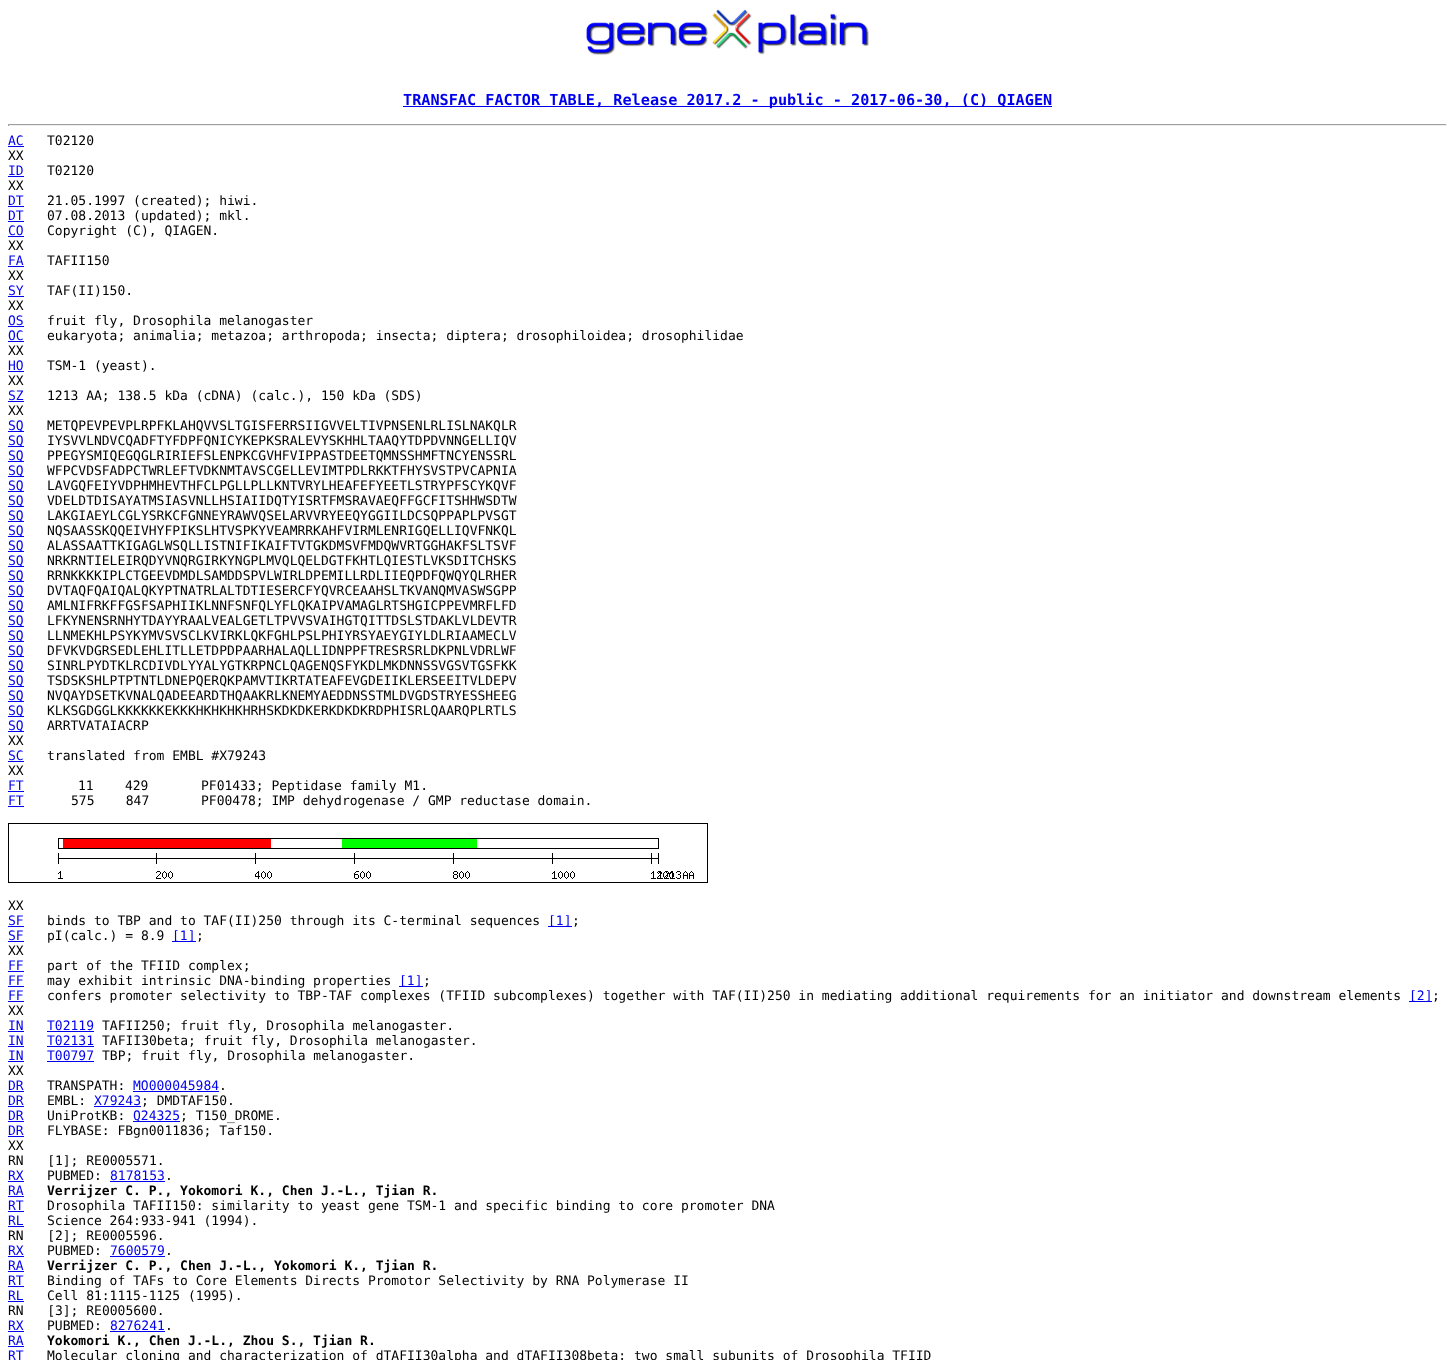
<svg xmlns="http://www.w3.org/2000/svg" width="1455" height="1360">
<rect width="100%" height="100%" fill="#fff"/>
<image x="586" y="9" width="283" height="46" href="media/1.png"/>
<rect x="403" y="106" width="649" height="1" fill="#00e"/>
<text x="403" y="105" style="font-family:DejaVu Sans Mono;font-size:15.2px;font-weight:bold;fill:#00e">TRANSFAC FACTOR TABLE, Release 2017.2 - public - 2017-06-30, (C) QIAGEN</text>
<rect x="8" y="124" width="1439" height="1" fill="#9f9f9f"/>
<rect x="1446" y="124" width="1" height="2" fill="#eee"/>
<rect x="8" y="125" width="1439" height="1" fill="#eee"/>
<rect x="8" y="124" width="1" height="2" fill="#9f9f9f"/>
<text x="8" y="145" style="font-family:DejaVu Sans Mono;font-size:13px;fill:#00e">AC</text>
<rect x="8" y="146" width="16" height="1" fill="#00e"/>
<text x="47" y="145" style="font-family:DejaVu Sans Mono;font-size:13px;fill:#000">T02120</text>
<text x="8" y="160" style="font-family:DejaVu Sans Mono;font-size:13px;fill:#000">XX</text>
<text x="8" y="175" style="font-family:DejaVu Sans Mono;font-size:13px;fill:#00e">ID</text>
<rect x="8" y="176" width="16" height="1" fill="#00e"/>
<text x="47" y="175" style="font-family:DejaVu Sans Mono;font-size:13px;fill:#000">T02120</text>
<text x="8" y="190" style="font-family:DejaVu Sans Mono;font-size:13px;fill:#000">XX</text>
<text x="8" y="205" style="font-family:DejaVu Sans Mono;font-size:13px;fill:#00e">DT</text>
<rect x="8" y="206" width="16" height="1" fill="#00e"/>
<text x="47" y="205" style="font-family:DejaVu Sans Mono;font-size:13px;fill:#000">21.05.1997 (created); hiwi.</text>
<text x="8" y="220" style="font-family:DejaVu Sans Mono;font-size:13px;fill:#00e">DT</text>
<rect x="8" y="221" width="16" height="1" fill="#00e"/>
<text x="47" y="220" style="font-family:DejaVu Sans Mono;font-size:13px;fill:#000">07.08.2013 (updated); mkl.</text>
<text x="8" y="235" style="font-family:DejaVu Sans Mono;font-size:13px;fill:#00e">CO</text>
<rect x="8" y="236" width="16" height="1" fill="#00e"/>
<text x="47" y="235" style="font-family:DejaVu Sans Mono;font-size:13px;fill:#000">Copyright (C), QIAGEN.</text>
<text x="8" y="250" style="font-family:DejaVu Sans Mono;font-size:13px;fill:#000">XX</text>
<text x="8" y="265" style="font-family:DejaVu Sans Mono;font-size:13px;fill:#00e">FA</text>
<rect x="8" y="266" width="16" height="1" fill="#00e"/>
<text x="47" y="265" style="font-family:DejaVu Sans Mono;font-size:13px;fill:#000">TAFII150</text>
<text x="8" y="280" style="font-family:DejaVu Sans Mono;font-size:13px;fill:#000">XX</text>
<text x="8" y="295" style="font-family:DejaVu Sans Mono;font-size:13px;fill:#00e">SY</text>
<rect x="8" y="296" width="16" height="1" fill="#00e"/>
<text x="47" y="295" style="font-family:DejaVu Sans Mono;font-size:13px;fill:#000">TAF(II)150.</text>
<text x="8" y="310" style="font-family:DejaVu Sans Mono;font-size:13px;fill:#000">XX</text>
<text x="8" y="325" style="font-family:DejaVu Sans Mono;font-size:13px;fill:#00e">OS</text>
<rect x="8" y="326" width="16" height="1" fill="#00e"/>
<text x="47" y="325" style="font-family:DejaVu Sans Mono;font-size:13px;fill:#000">fruit fly, Drosophila melanogaster</text>
<text x="8" y="340" style="font-family:DejaVu Sans Mono;font-size:13px;fill:#00e">OC</text>
<rect x="8" y="341" width="16" height="1" fill="#00e"/>
<text x="47" y="340" style="font-family:DejaVu Sans Mono;font-size:13px;fill:#000">eukaryota; animalia; metazoa; arthropoda; insecta; diptera; drosophiloidea; drosophilidae</text>
<text x="8" y="355" style="font-family:DejaVu Sans Mono;font-size:13px;fill:#000">XX</text>
<text x="8" y="370" style="font-family:DejaVu Sans Mono;font-size:13px;fill:#00e">HO</text>
<rect x="8" y="371" width="16" height="1" fill="#00e"/>
<text x="47" y="370" style="font-family:DejaVu Sans Mono;font-size:13px;fill:#000">TSM-1 (yeast).</text>
<text x="8" y="385" style="font-family:DejaVu Sans Mono;font-size:13px;fill:#000">XX</text>
<text x="8" y="400" style="font-family:DejaVu Sans Mono;font-size:13px;fill:#00e">SZ</text>
<rect x="8" y="401" width="16" height="1" fill="#00e"/>
<text x="47" y="400" style="font-family:DejaVu Sans Mono;font-size:13px;fill:#000">1213 AA; 138.5 kDa (cDNA) (calc.), 150 kDa (SDS)</text>
<text x="8" y="415" style="font-family:DejaVu Sans Mono;font-size:13px;fill:#000">XX</text>
<rect x="8" y="431" width="16" height="1" fill="#00e"/>
<text x="8" y="430" style="font-family:DejaVu Sans Mono;font-size:13px;fill:#00e">SQ</text>
<text x="47" y="430" style="font-family:DejaVu Sans Mono;font-size:13px;fill:#000">METQPEVPEVPLRPFKLAHQVVSLTGISFERRSIIGVVELTIVPNSENLRLISLNAKQLR</text>
<rect x="8" y="446" width="16" height="1" fill="#00e"/>
<text x="8" y="445" style="font-family:DejaVu Sans Mono;font-size:13px;fill:#00e">SQ</text>
<text x="47" y="445" style="font-family:DejaVu Sans Mono;font-size:13px;fill:#000">IYSVVLNDVCQADFTYFDPFQNICYKEPKSRALEVYSKHHLTAAQYTDPDVNNGELLIQV</text>
<rect x="8" y="461" width="16" height="1" fill="#00e"/>
<text x="8" y="460" style="font-family:DejaVu Sans Mono;font-size:13px;fill:#00e">SQ</text>
<text x="47" y="460" style="font-family:DejaVu Sans Mono;font-size:13px;fill:#000">PPEGYSMIQEGQGLRIRIEFSLENPKCGVHFVIPPASTDEETQMNSSHMFTNCYENSSRL</text>
<rect x="8" y="476" width="16" height="1" fill="#00e"/>
<text x="8" y="475" style="font-family:DejaVu Sans Mono;font-size:13px;fill:#00e">SQ</text>
<text x="47" y="475" style="font-family:DejaVu Sans Mono;font-size:13px;fill:#000">WFPCVDSFADPCTWRLEFTVDKNMTAVSCGELLEVIMTPDLRKKTFHYSVSTPVCAPNIA</text>
<rect x="8" y="491" width="16" height="1" fill="#00e"/>
<text x="8" y="490" style="font-family:DejaVu Sans Mono;font-size:13px;fill:#00e">SQ</text>
<text x="47" y="490" style="font-family:DejaVu Sans Mono;font-size:13px;fill:#000">LAVGQFEIYVDPHMHEVTHFCLPGLLPLLKNTVRYLHEAFEFYEETLSTRYPFSCYKQVF</text>
<rect x="8" y="506" width="16" height="1" fill="#00e"/>
<text x="8" y="505" style="font-family:DejaVu Sans Mono;font-size:13px;fill:#00e">SQ</text>
<text x="47" y="505" style="font-family:DejaVu Sans Mono;font-size:13px;fill:#000">VDELDTDISAYATMSIASVNLLHSIAIIDQTYISRTFMSRAVAEQFFGCFITSHHWSDTW</text>
<rect x="8" y="521" width="16" height="1" fill="#00e"/>
<text x="8" y="520" style="font-family:DejaVu Sans Mono;font-size:13px;fill:#00e">SQ</text>
<text x="47" y="520" style="font-family:DejaVu Sans Mono;font-size:13px;fill:#000">LAKGIAEYLCGLYSRKCFGNNEYRAWVQSELARVVRYEEQYGGIILDCSQPPAPLPVSGT</text>
<rect x="8" y="536" width="16" height="1" fill="#00e"/>
<text x="8" y="535" style="font-family:DejaVu Sans Mono;font-size:13px;fill:#00e">SQ</text>
<text x="47" y="535" style="font-family:DejaVu Sans Mono;font-size:13px;fill:#000">NQSAASSKQQEIVHYFPIKSLHTVSPKYVEAMRRKAHFVIRMLENRIGQELLIQVFNKQL</text>
<rect x="8" y="551" width="16" height="1" fill="#00e"/>
<text x="8" y="550" style="font-family:DejaVu Sans Mono;font-size:13px;fill:#00e">SQ</text>
<text x="47" y="550" style="font-family:DejaVu Sans Mono;font-size:13px;fill:#000">ALASSAATTKIGAGLWSQLLISTNIFIKAIFTVTGKDMSVFMDQWVRTGGHAKFSLTSVF</text>
<rect x="8" y="566" width="16" height="1" fill="#00e"/>
<text x="8" y="565" style="font-family:DejaVu Sans Mono;font-size:13px;fill:#00e">SQ</text>
<text x="47" y="565" style="font-family:DejaVu Sans Mono;font-size:13px;fill:#000">NRKRNTIELEIRQDYVNQRGIRKYNGPLMVQLQELDGTFKHTLQIESTLVKSDITCHSKS</text>
<rect x="8" y="581" width="16" height="1" fill="#00e"/>
<text x="8" y="580" style="font-family:DejaVu Sans Mono;font-size:13px;fill:#00e">SQ</text>
<text x="47" y="580" style="font-family:DejaVu Sans Mono;font-size:13px;fill:#000">RRNKKKKIPLCTGEEVDMDLSAMDDSPVLWIRLDPEMILLRDLIIEQPDFQWQYQLRHER</text>
<rect x="8" y="596" width="16" height="1" fill="#00e"/>
<text x="8" y="595" style="font-family:DejaVu Sans Mono;font-size:13px;fill:#00e">SQ</text>
<text x="47" y="595" style="font-family:DejaVu Sans Mono;font-size:13px;fill:#000">DVTAQFQAIQALQKYPTNATRLALTDTIESERCFYQVRCEAAHSLTKVANQMVASWSGPP</text>
<rect x="8" y="611" width="16" height="1" fill="#00e"/>
<text x="8" y="610" style="font-family:DejaVu Sans Mono;font-size:13px;fill:#00e">SQ</text>
<text x="47" y="610" style="font-family:DejaVu Sans Mono;font-size:13px;fill:#000">AMLNIFRKFFGSFSAPHIIKLNNFSNFQLYFLQKAIPVAMAGLRTSHGICPPEVMRFLFD</text>
<rect x="8" y="626" width="16" height="1" fill="#00e"/>
<text x="8" y="625" style="font-family:DejaVu Sans Mono;font-size:13px;fill:#00e">SQ</text>
<text x="47" y="625" style="font-family:DejaVu Sans Mono;font-size:13px;fill:#000">LFKYNENSRNHYTDAYYRAALVEALGETLTPVVSVAIHGTQITTDSLSTDAKLVLDEVTR</text>
<rect x="8" y="641" width="16" height="1" fill="#00e"/>
<text x="8" y="640" style="font-family:DejaVu Sans Mono;font-size:13px;fill:#00e">SQ</text>
<text x="47" y="640" style="font-family:DejaVu Sans Mono;font-size:13px;fill:#000">LLNMEKHLPSYKYMVSVSCLKVIRKLQKFGHLPSLPHIYRSYAEYGIYLDLRIAAMECLV</text>
<rect x="8" y="656" width="16" height="1" fill="#00e"/>
<text x="8" y="655" style="font-family:DejaVu Sans Mono;font-size:13px;fill:#00e">SQ</text>
<text x="47" y="655" style="font-family:DejaVu Sans Mono;font-size:13px;fill:#000">DFVKVDGRSEDLEHLITLLETDPDPAARHALAQLLIDNPPFTRESRSRLDKPNLVDRLWF</text>
<rect x="8" y="671" width="16" height="1" fill="#00e"/>
<text x="8" y="670" style="font-family:DejaVu Sans Mono;font-size:13px;fill:#00e">SQ</text>
<text x="47" y="670" style="font-family:DejaVu Sans Mono;font-size:13px;fill:#000">SINRLPYDTKLRCDIVDLYYALYGTKRPNCLQAGENQSFYKDLMKDNNSSVGSVTGSFKK</text>
<rect x="8" y="686" width="16" height="1" fill="#00e"/>
<text x="8" y="685" style="font-family:DejaVu Sans Mono;font-size:13px;fill:#00e">SQ</text>
<text x="47" y="685" style="font-family:DejaVu Sans Mono;font-size:13px;fill:#000">TSDSKSHLPTPTNTLDNEPQERQKPAMVTIKRTATEAFEVGDEIIKLERSEEITVLDEPV</text>
<rect x="8" y="701" width="16" height="1" fill="#00e"/>
<text x="8" y="700" style="font-family:DejaVu Sans Mono;font-size:13px;fill:#00e">SQ</text>
<text x="47" y="700" style="font-family:DejaVu Sans Mono;font-size:13px;fill:#000">NVQAYDSETKVNALQADEEARDTHQAAKRLKNEMYAEDDNSSTMLDVGDSTRYESSHEEG</text>
<rect x="8" y="716" width="16" height="1" fill="#00e"/>
<text x="8" y="715" style="font-family:DejaVu Sans Mono;font-size:13px;fill:#00e">SQ</text>
<text x="47" y="715" style="font-family:DejaVu Sans Mono;font-size:13px;fill:#000">KLKSGDGGLKKKKKKEKKKHKHKHKHRHSKDKDKERKDKDKRDPHISRLQAARQPLRTLS</text>
<rect x="8" y="731" width="16" height="1" fill="#00e"/>
<text x="8" y="730" style="font-family:DejaVu Sans Mono;font-size:13px;fill:#00e">SQ</text>
<text x="47" y="730" style="font-family:DejaVu Sans Mono;font-size:13px;fill:#000">ARRTVATAIACRP</text>
<text x="8" y="745" style="font-family:DejaVu Sans Mono;font-size:13px;fill:#000">XX</text>
<text x="8" y="760" style="font-family:DejaVu Sans Mono;font-size:13px;fill:#00e">SC</text>
<rect x="8" y="761" width="16" height="1" fill="#00e"/>
<text x="47" y="760" style="font-family:DejaVu Sans Mono;font-size:13px;fill:#000">translated from EMBL #X79243</text>
<text x="8" y="775" style="font-family:DejaVu Sans Mono;font-size:13px;fill:#000">XX</text>
<text x="8" y="790" style="font-family:DejaVu Sans Mono;font-size:13px;fill:#00e">FT</text>
<rect x="8" y="791" width="16" height="1" fill="#00e"/>
<text x="78" y="790" style="font-family:DejaVu Sans Mono;font-size:13px;fill:#000" xml:space="preserve">11    429</text>
<text x="201" y="790" style="font-family:DejaVu Sans Mono;font-size:13px;fill:#000">PF01433; Peptidase family M1.</text>
<text x="8" y="805" style="font-family:DejaVu Sans Mono;font-size:13px;fill:#00e">FT</text>
<rect x="8" y="806" width="16" height="1" fill="#00e"/>
<text x="71" y="805" style="font-family:DejaVu Sans Mono;font-size:13px;fill:#000" xml:space="preserve">575    847</text>
<text x="201" y="805" style="font-family:DejaVu Sans Mono;font-size:13px;fill:#000">PF00478; IMP dehydrogenase / GMP reductase domain.</text>
<image x="8" y="823" width="700" height="60" href="media/2.png"/>
<text x="8" y="910" style="font-family:DejaVu Sans Mono;font-size:13px;fill:#000">XX</text>
<text x="8" y="925" style="font-family:DejaVu Sans Mono;font-size:13px;fill:#00e">SF</text>
<rect x="8" y="926" width="16" height="1" fill="#00e"/>
<text x="47" y="925" style="font-family:DejaVu Sans Mono;font-size:13px;fill:#000">binds to TBP and to TAF(II)250 through its C-terminal sequences</text>
<rect x="548" y="926" width="24" height="1" fill="#00e"/>
<text x="548" y="925" style="font-family:DejaVu Sans Mono;font-size:13px;fill:#00e">[1]</text>
<text x="572" y="925" style="font-family:DejaVu Sans Mono;font-size:13px;fill:#000">;</text>
<text x="8" y="940" style="font-family:DejaVu Sans Mono;font-size:13px;fill:#00e">SF</text>
<rect x="8" y="941" width="16" height="1" fill="#00e"/>
<text x="47" y="940" style="font-family:DejaVu Sans Mono;font-size:13px;fill:#000">pI(calc.) = 8.9</text>
<rect x="172" y="941" width="24" height="1" fill="#00e"/>
<text x="172" y="940" style="font-family:DejaVu Sans Mono;font-size:13px;fill:#00e">[1]</text>
<text x="196" y="940" style="font-family:DejaVu Sans Mono;font-size:13px;fill:#000">;</text>
<text x="8" y="955" style="font-family:DejaVu Sans Mono;font-size:13px;fill:#000">XX</text>
<text x="8" y="970" style="font-family:DejaVu Sans Mono;font-size:13px;fill:#00e">FF</text>
<rect x="8" y="971" width="16" height="1" fill="#00e"/>
<text x="47" y="970" style="font-family:DejaVu Sans Mono;font-size:13px;fill:#000">part of the TFIID complex;</text>
<text x="8" y="985" style="font-family:DejaVu Sans Mono;font-size:13px;fill:#00e">FF</text>
<rect x="8" y="986" width="16" height="1" fill="#00e"/>
<text x="47" y="985" style="font-family:DejaVu Sans Mono;font-size:13px;fill:#000">may exhibit intrinsic DNA-binding properties</text>
<rect x="399" y="986" width="24" height="1" fill="#00e"/>
<text x="399" y="985" style="font-family:DejaVu Sans Mono;font-size:13px;fill:#00e">[1]</text>
<text x="423" y="985" style="font-family:DejaVu Sans Mono;font-size:13px;fill:#000">;</text>
<text x="8" y="1000" style="font-family:DejaVu Sans Mono;font-size:13px;fill:#00e">FF</text>
<rect x="8" y="1001" width="16" height="1" fill="#00e"/>
<text x="47" y="1000" style="font-family:DejaVu Sans Mono;font-size:13px;fill:#000">confers promoter selectivity to TBP-TAF complexes (TFIID subcomplexes) together with TAF(II)250 in mediating additional requirements for an initiator and downstream elements</text>
<rect x="1409" y="1001" width="23" height="1" fill="#00e"/>
<text x="1409" y="1000" style="font-family:DejaVu Sans Mono;font-size:13px;fill:#00e">[2]</text>
<text x="1432" y="1000" style="font-family:DejaVu Sans Mono;font-size:13px;fill:#000">;</text>
<text x="8" y="1015" style="font-family:DejaVu Sans Mono;font-size:13px;fill:#000">XX</text>
<text x="8" y="1030" style="font-family:DejaVu Sans Mono;font-size:13px;fill:#00e">IN</text>
<rect x="8" y="1031" width="16" height="1" fill="#00e"/>
<text x="47" y="1030" style="font-family:DejaVu Sans Mono;font-size:13px;fill:#00e">T02119</text>
<rect x="47" y="1031" width="47" height="1" fill="#00e"/>
<text x="102" y="1030" style="font-family:DejaVu Sans Mono;font-size:13px;fill:#000">TAFII250; fruit fly, Drosophila melanogaster.</text>
<text x="8" y="1045" style="font-family:DejaVu Sans Mono;font-size:13px;fill:#00e">IN</text>
<rect x="8" y="1046" width="16" height="1" fill="#00e"/>
<text x="47" y="1045" style="font-family:DejaVu Sans Mono;font-size:13px;fill:#00e">T02131</text>
<rect x="47" y="1046" width="47" height="1" fill="#00e"/>
<text x="102" y="1045" style="font-family:DejaVu Sans Mono;font-size:13px;fill:#000">TAFII30beta; fruit fly, Drosophila melanogaster.</text>
<text x="8" y="1060" style="font-family:DejaVu Sans Mono;font-size:13px;fill:#00e">IN</text>
<rect x="8" y="1061" width="16" height="1" fill="#00e"/>
<text x="47" y="1060" style="font-family:DejaVu Sans Mono;font-size:13px;fill:#00e">T00797</text>
<rect x="47" y="1061" width="47" height="1" fill="#00e"/>
<text x="102" y="1060" style="font-family:DejaVu Sans Mono;font-size:13px;fill:#000">TBP; fruit fly, Drosophila melanogaster.</text>
<text x="8" y="1075" style="font-family:DejaVu Sans Mono;font-size:13px;fill:#000">XX</text>
<text x="8" y="1090" style="font-family:DejaVu Sans Mono;font-size:13px;fill:#00e">DR</text>
<rect x="8" y="1091" width="16" height="1" fill="#00e"/>
<text x="47" y="1090" style="font-family:DejaVu Sans Mono;font-size:13px;fill:#000">TRANSPATH:</text>
<text x="133" y="1090" style="font-family:DejaVu Sans Mono;font-size:13px;fill:#00e">MO000045984</text>
<rect x="133" y="1091" width="86" height="1" fill="#00e"/>
<text x="219" y="1090" style="font-family:DejaVu Sans Mono;font-size:13px;fill:#000">.</text>
<text x="8" y="1105" style="font-family:DejaVu Sans Mono;font-size:13px;fill:#00e">DR</text>
<rect x="8" y="1106" width="16" height="1" fill="#00e"/>
<text x="47" y="1105" style="font-family:DejaVu Sans Mono;font-size:13px;fill:#000">EMBL:</text>
<text x="94" y="1105" style="font-family:DejaVu Sans Mono;font-size:13px;fill:#00e">X79243</text>
<rect x="94" y="1106" width="47" height="1" fill="#00e"/>
<text x="141" y="1105" style="font-family:DejaVu Sans Mono;font-size:13px;fill:#000">; DMDTAF150.</text>
<text x="8" y="1120" style="font-family:DejaVu Sans Mono;font-size:13px;fill:#00e">DR</text>
<rect x="8" y="1121" width="16" height="1" fill="#00e"/>
<text x="47" y="1120" style="font-family:DejaVu Sans Mono;font-size:13px;fill:#000">UniProtKB:</text>
<rect x="133" y="1121" width="47" height="1" fill="#00e"/>
<text x="133" y="1120" style="font-family:DejaVu Sans Mono;font-size:13px;fill:#00e">Q24325</text>
<text x="180" y="1120" style="font-family:DejaVu Sans Mono;font-size:13px;fill:#000">; T150_DROME.</text>
<text x="8" y="1135" style="font-family:DejaVu Sans Mono;font-size:13px;fill:#00e">DR</text>
<rect x="8" y="1136" width="16" height="1" fill="#00e"/>
<text x="47" y="1135" style="font-family:DejaVu Sans Mono;font-size:13px;fill:#000">FLYBASE: FBgn0011836; Taf150.</text>
<text x="8" y="1150" style="font-family:DejaVu Sans Mono;font-size:13px;fill:#000">XX</text>
<text x="8" y="1165" style="font-family:DejaVu Sans Mono;font-size:13px;fill:#000" xml:space="preserve">RN   [1]; RE0005571.</text>
<text x="8" y="1180" style="font-family:DejaVu Sans Mono;font-size:13px;fill:#00e">RX</text>
<rect x="8" y="1181" width="16" height="1" fill="#00e"/>
<text x="47" y="1180" style="font-family:DejaVu Sans Mono;font-size:13px;fill:#000">PUBMED:</text>
<text x="110" y="1180" style="font-family:DejaVu Sans Mono;font-size:13px;fill:#00e">8178153</text>
<rect x="110" y="1181" width="55" height="1" fill="#00e"/>
<text x="165" y="1180" style="font-family:DejaVu Sans Mono;font-size:13px;fill:#000">.</text>
<text x="8" y="1195" style="font-family:DejaVu Sans Mono;font-size:13px;fill:#00e">RA</text>
<rect x="8" y="1196" width="16" height="1" fill="#00e"/>
<text x="47" y="1195" style="font-family:DejaVu Sans Mono;font-size:13px;font-weight:bold;fill:#000">Verrijzer C. P., Yokomori K., Chen J.-L., Tjian R.</text>
<text x="8" y="1210" style="font-family:DejaVu Sans Mono;font-size:13px;fill:#00e">RT</text>
<rect x="8" y="1211" width="16" height="1" fill="#00e"/>
<text x="47" y="1210" style="font-family:DejaVu Sans Mono;font-size:13px;fill:#000">Drosophila TAFII150: similarity to yeast gene TSM-1 and specific binding to core promoter DNA</text>
<text x="8" y="1225" style="font-family:DejaVu Sans Mono;font-size:13px;fill:#00e">RL</text>
<rect x="8" y="1226" width="16" height="1" fill="#00e"/>
<text x="47" y="1225" style="font-family:DejaVu Sans Mono;font-size:13px;fill:#000">Science 264:933-941 (1994).</text>
<text x="8" y="1240" style="font-family:DejaVu Sans Mono;font-size:13px;fill:#000" xml:space="preserve">RN   [2]; RE0005596.</text>
<text x="8" y="1255" style="font-family:DejaVu Sans Mono;font-size:13px;fill:#00e">RX</text>
<rect x="8" y="1256" width="16" height="1" fill="#00e"/>
<text x="47" y="1255" style="font-family:DejaVu Sans Mono;font-size:13px;fill:#000">PUBMED:</text>
<text x="110" y="1255" style="font-family:DejaVu Sans Mono;font-size:13px;fill:#00e">7600579</text>
<rect x="110" y="1256" width="55" height="1" fill="#00e"/>
<text x="165" y="1255" style="font-family:DejaVu Sans Mono;font-size:13px;fill:#000">.</text>
<text x="8" y="1270" style="font-family:DejaVu Sans Mono;font-size:13px;fill:#00e">RA</text>
<rect x="8" y="1271" width="16" height="1" fill="#00e"/>
<text x="47" y="1270" style="font-family:DejaVu Sans Mono;font-size:13px;font-weight:bold;fill:#000">Verrijzer C. P., Chen J.-L., Yokomori K., Tjian R.</text>
<text x="8" y="1285" style="font-family:DejaVu Sans Mono;font-size:13px;fill:#00e">RT</text>
<rect x="8" y="1286" width="16" height="1" fill="#00e"/>
<text x="47" y="1285" style="font-family:DejaVu Sans Mono;font-size:13px;fill:#000">Binding of TAFs to Core Elements Directs Promotor Selectivity by RNA Polymerase II</text>
<text x="8" y="1300" style="font-family:DejaVu Sans Mono;font-size:13px;fill:#00e">RL</text>
<rect x="8" y="1301" width="16" height="1" fill="#00e"/>
<text x="47" y="1300" style="font-family:DejaVu Sans Mono;font-size:13px;fill:#000">Cell 81:1115-1125 (1995).</text>
<text x="8" y="1315" style="font-family:DejaVu Sans Mono;font-size:13px;fill:#000" xml:space="preserve">RN   [3]; RE0005600.</text>
<text x="8" y="1330" style="font-family:DejaVu Sans Mono;font-size:13px;fill:#00e">RX</text>
<rect x="8" y="1331" width="16" height="1" fill="#00e"/>
<text x="47" y="1330" style="font-family:DejaVu Sans Mono;font-size:13px;fill:#000">PUBMED:</text>
<text x="110" y="1330" style="font-family:DejaVu Sans Mono;font-size:13px;fill:#00e">8276241</text>
<rect x="110" y="1331" width="55" height="1" fill="#00e"/>
<text x="165" y="1330" style="font-family:DejaVu Sans Mono;font-size:13px;fill:#000">.</text>
<text x="8" y="1345" style="font-family:DejaVu Sans Mono;font-size:13px;fill:#00e">RA</text>
<rect x="8" y="1346" width="16" height="1" fill="#00e"/>
<text x="47" y="1345" style="font-family:DejaVu Sans Mono;font-size:13px;font-weight:bold;fill:#000">Yokomori K., Chen J.-L., Zhou S., Tjian R.</text>
<text x="8" y="1360" style="font-family:DejaVu Sans Mono;font-size:13px;fill:#00e">RT</text>
<text x="47" y="1360" style="font-family:DejaVu Sans Mono;font-size:13px;fill:#000">Molecular cloning and characterization of dTAFII30alpha and dTAFII308beta: two small subunits of Drosophila TFIID</text>
</svg>
